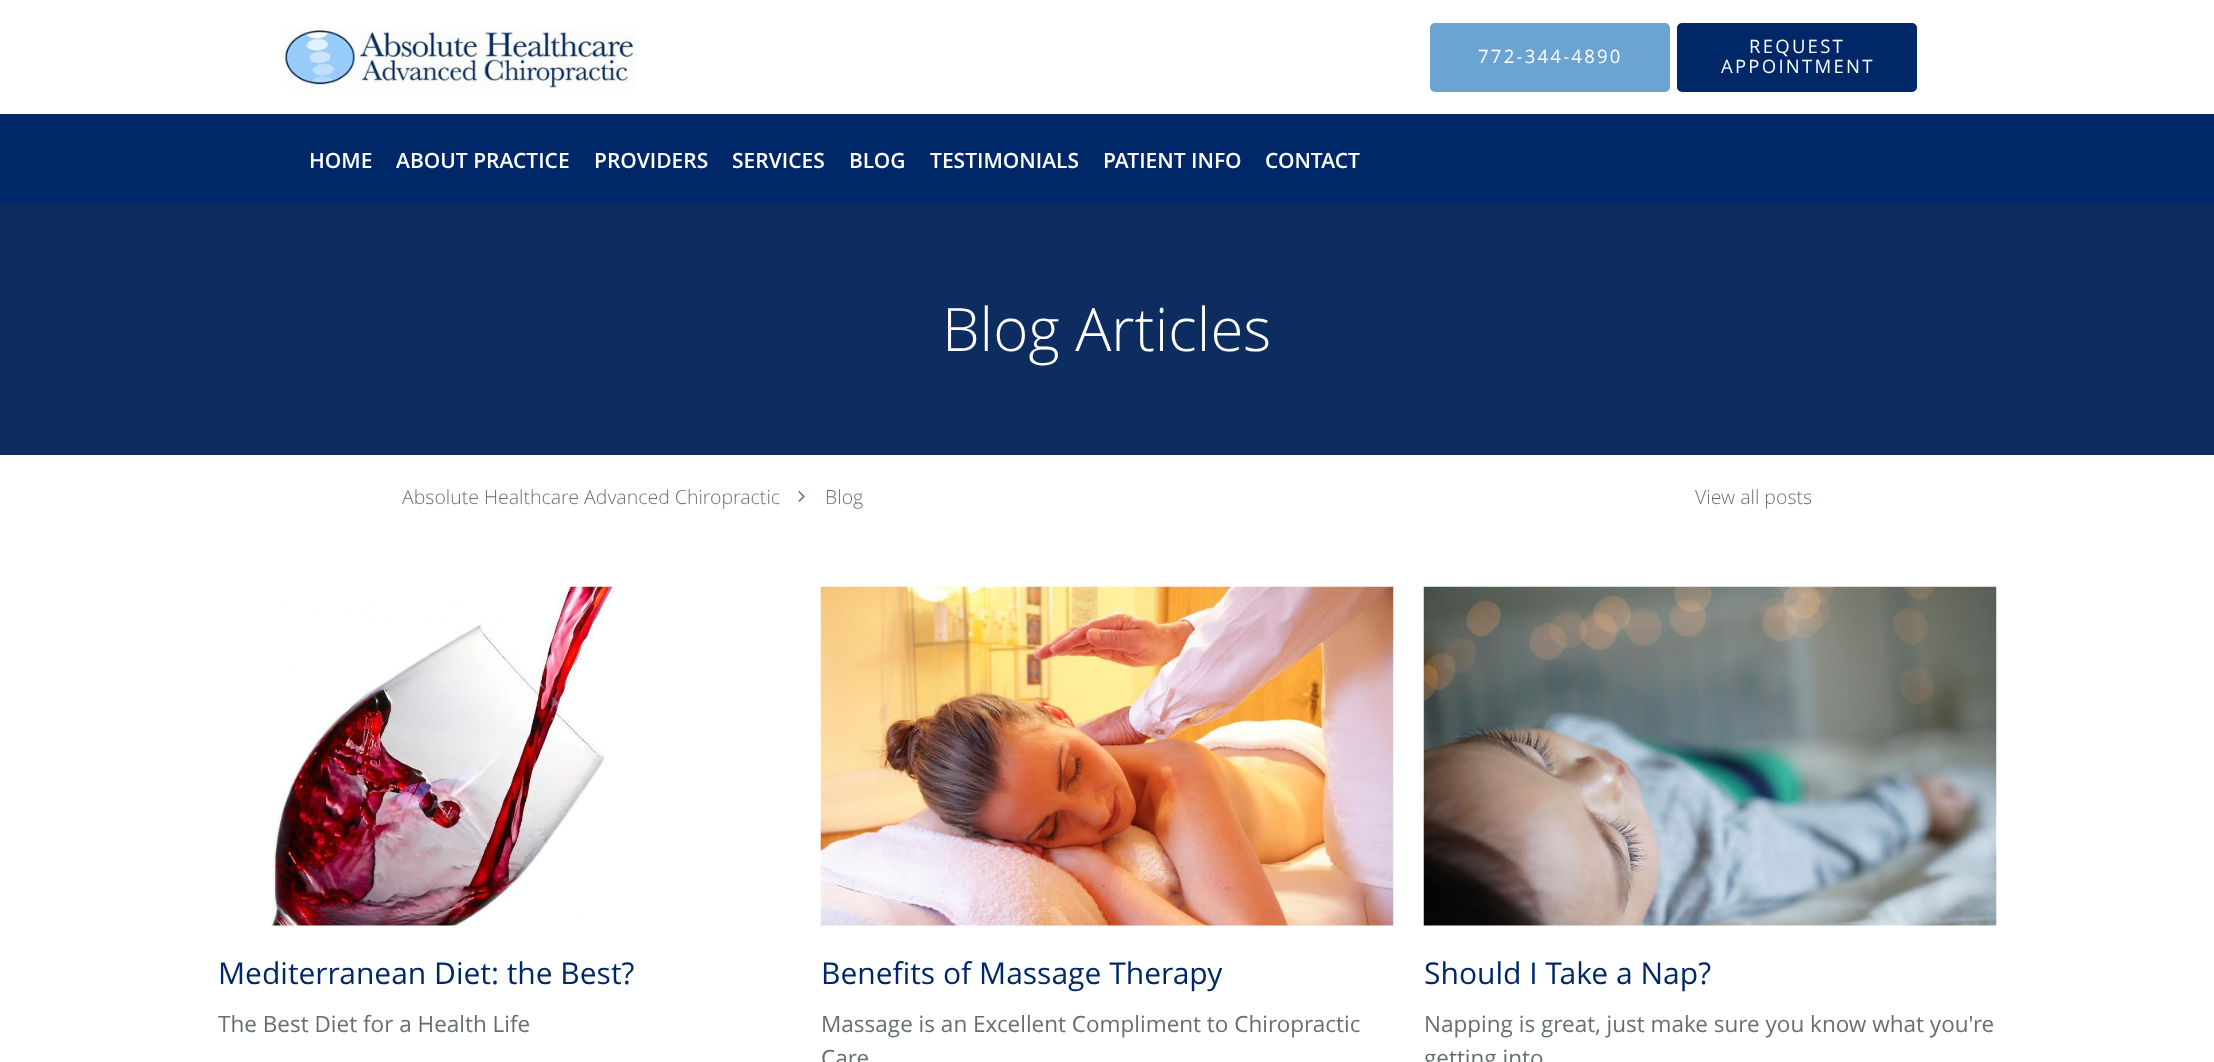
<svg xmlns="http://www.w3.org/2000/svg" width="2214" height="1062">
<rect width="100%" height="100%" fill="#fff"/>
<image x="282" y="28" width="354" height="61" href="media/1.png"/>
<rect x="1431" y="24" width="238" height="67" rx="4" fill="#6ba4d2" stroke="#6ba4d2" stroke-width="2"/>
<text x="1478" y="63" style="font-family:Open Sans;font-size:18.5px;letter-spacing:2.25px;fill:#fff">772-344-4890</text>
<rect x="1678" y="24" width="238" height="67" rx="4" fill="#002868" stroke="#002868" stroke-width="2"/>
<text x="1749" y="53" style="font-family:Open Sans;font-size:18.5px;letter-spacing:2.25px;fill:#fff">REQUEST</text>
<text x="1721" y="73" style="font-family:Open Sans;font-size:18.5px;letter-spacing:2.25px;fill:#fff">APPOINTMENT</text>
<rect y="114" width="2214" height="89" fill="#002868"/>
<text x="309" y="168" style="font-family:Open Sans;font-size:21px;font-weight:600;fill:#fff">HOME</text>
<text x="396" y="168" style="font-family:Open Sans;font-size:21px;font-weight:600;fill:#fff">ABOUT PRACTICE</text>
<text x="594" y="168" style="font-family:Open Sans;font-size:21px;font-weight:600;fill:#fff">PROVIDERS</text>
<text x="732" y="168" style="font-family:Open Sans;font-size:21px;font-weight:600;fill:#fff">SERVICES</text>
<text x="849" y="168" style="font-family:Open Sans;font-size:21px;font-weight:600;fill:#fff">BLOG</text>
<text x="930" y="168" style="font-family:Open Sans;font-size:21px;font-weight:600;fill:#fff">TESTIMONIALS</text>
<text x="1103" y="168" style="font-family:Open Sans;font-size:21px;font-weight:600;fill:#fff">PATIENT INFO</text>
<text x="1265" y="168" style="font-family:Open Sans;font-size:21px;font-weight:600;fill:#fff">CONTACT</text>
<rect y="203" width="2214" height="252" fill="#0d2d60"/>
<text x="942" y="351" style="font-family:Open Sans;font-size:60px;font-weight:300;fill:#fff">Blog Articles</text>
<text x="402" y="504" style="font-family:Open Sans;font-size:19.5px;font-weight:300;fill:#656f72">Absolute Healthcare Advanced Chiropractic</text>
<image x="798" y="491" width="7" height="11" href="media/2.png"/>
<text x="825" y="504" style="font-family:Open Sans;font-size:19.5px;font-weight:300;fill:#656f72">Blog</text>
<text x="1695" y="504" style="font-family:Open Sans;font-size:19.5px;font-weight:300;fill:#656f72">View all posts</text>
<image x="270" y="586" width="346" height="340" href="media/3.png"/>
<text x="218" y="984" style="font-family:Open Sans;font-size:30px;fill:#002868">Mediterranean Diet: the Best?</text>
<text x="218" y="1032" style="font-family:Open Sans;font-size:22.5px;fill:#656f72">The Best Diet for a Health Life</text>
<image x="820" y="586" width="574" height="340" href="media/4.png"/>
<text x="821" y="984" style="font-family:Open Sans;font-size:30px;fill:#002868">Benefits of Massage Therapy</text>
<text x="821" y="1032" style="font-family:Open Sans;font-size:22.5px;fill:#656f72">Massage is an Excellent Compliment to Chiropractic</text>
<text x="821" y="1066" style="font-family:Open Sans;font-size:22.5px;fill:#656f72">Care</text>
<image x="1423" y="586" width="574" height="340" href="media/5.png"/>
<text x="1424" y="984" style="font-family:Open Sans;font-size:30px;fill:#002868">Should I Take a Nap?</text>
<text x="1424" y="1032" style="font-family:Open Sans;font-size:22.5px;fill:#656f72">Napping is great, just make sure you know what you're</text>
<text x="1424" y="1066" style="font-family:Open Sans;font-size:22.5px;fill:#656f72">getting into</text>
</svg>
